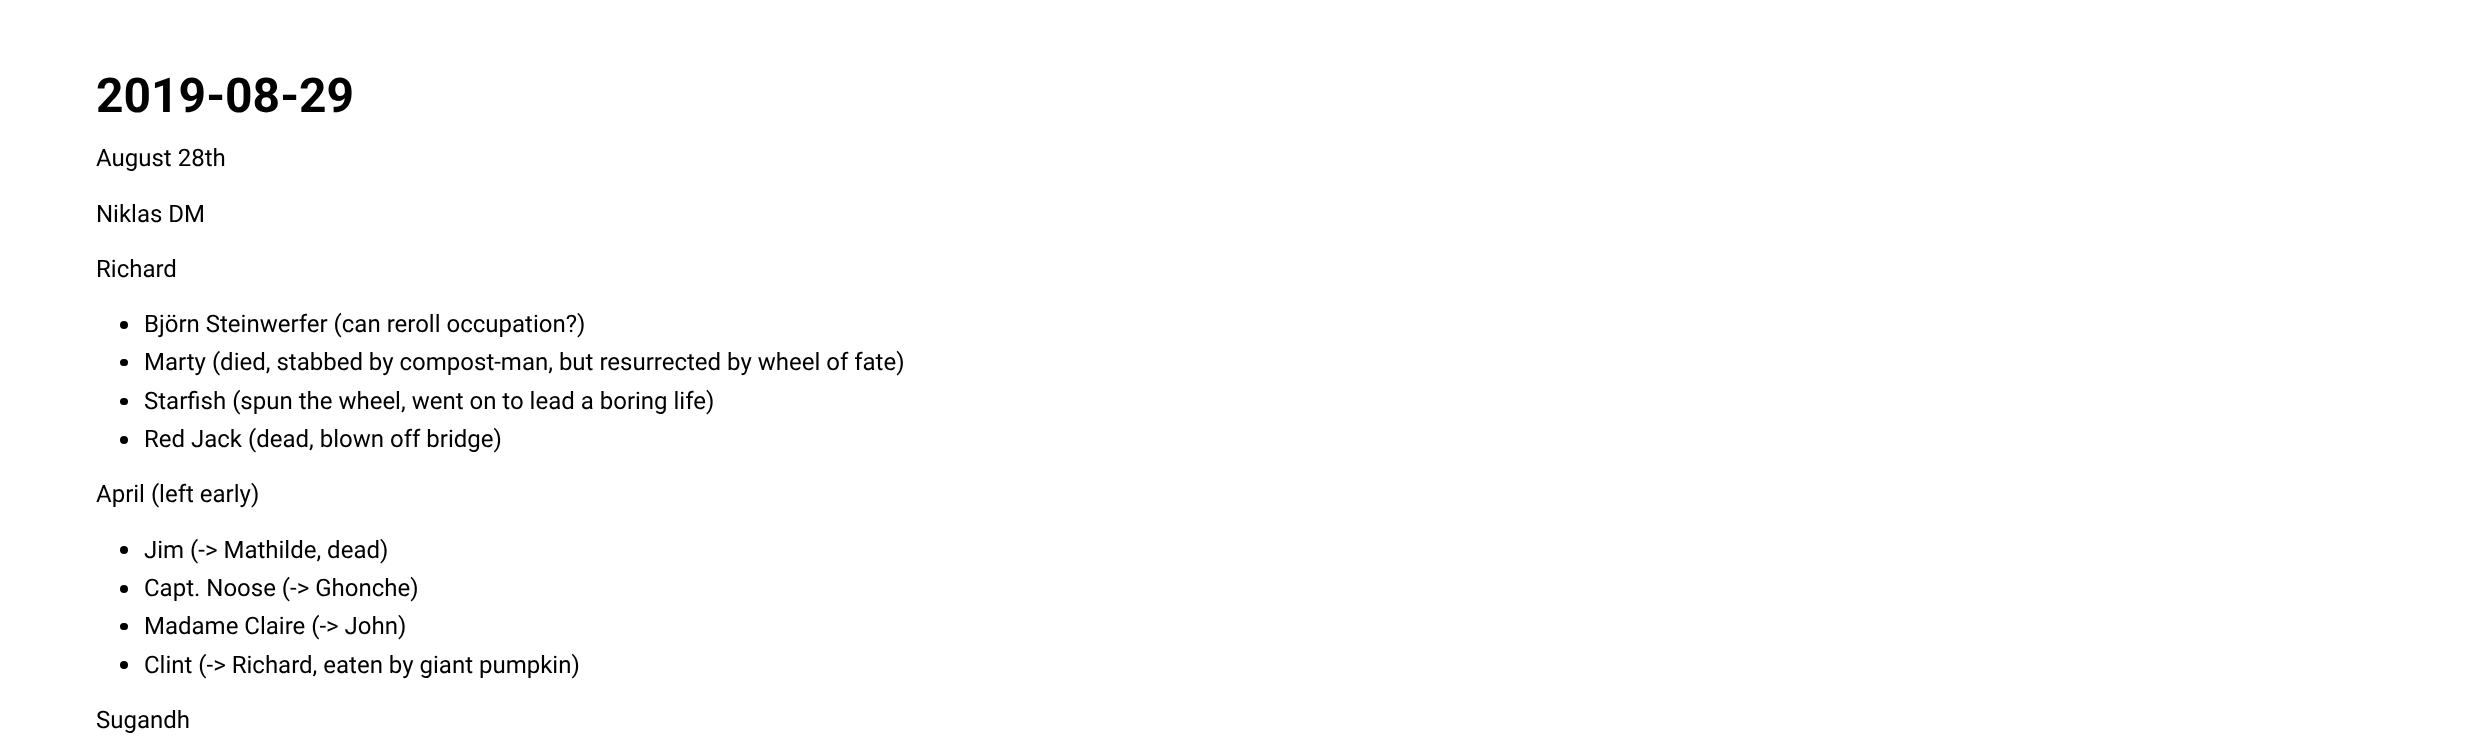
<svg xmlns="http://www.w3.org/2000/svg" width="2486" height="738">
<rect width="100%" height="100%" fill="#fff"/>
<text x="96" y="112" style="font-family:Roboto;font-size:48px;font-weight:bold;fill:#000">2019-08-29</text>
<text x="96" y="166" style="font-family:Roboto;font-size:24px;fill:#000">August 28th</text>
<text x="96" y="222" style="font-family:Roboto;font-size:24px;fill:#000">Niklas DM</text>
<text x="96" y="277" style="font-family:Roboto;font-size:24px;fill:#000">Richard</text>
<circle cx="124" cy="325" r="4" fill="#000"/>
<text x="144" y="332" style="font-family:Roboto;font-size:24px;fill:#000">Björn Steinwerfer (can reroll occupation?)</text>
<rect x="120" y="359" width="8" height="7" rx="3.5" fill="#000"/>
<text x="144" y="370" style="font-family:Roboto;font-size:24px;fill:#000">Marty (died, stabbed by compost-man, but resurrected by wheel of fate)</text>
<rect x="120" y="398" width="8" height="7" rx="3.5" fill="#000"/>
<text x="144" y="409" style="font-family:Roboto;font-size:24px;fill:#000">Starfish (spun the wheel, went on to lead a boring life)</text>
<circle cx="124" cy="440" r="4" fill="#000"/>
<text x="144" y="447" style="font-family:Roboto;font-size:24px;fill:#000">Red Jack (dead, blown off bridge)</text>
<text x="96" y="502" style="font-family:Roboto;font-size:24px;fill:#000">April (left early)</text>
<circle cx="124" cy="550" r="4" fill="#000"/>
<text x="144" y="558" style="font-family:Roboto;font-size:24px;fill:#000">Jim (-&gt; Mathilde, dead)</text>
<circle cx="124" cy="589" r="4" fill="#000"/>
<text x="144" y="596" style="font-family:Roboto;font-size:24px;fill:#000">Capt. Noose (-&gt; Ghonche)</text>
<rect x="120" y="623" width="8" height="7" rx="3.5" fill="#000"/>
<text x="144" y="634" style="font-family:Roboto;font-size:24px;fill:#000">Madame Claire (-&gt; John)</text>
<circle cx="124" cy="665" r="4" fill="#000"/>
<text x="144" y="673" style="font-family:Roboto;font-size:24px;fill:#000">Clint (-&gt; Richard, eaten by giant pumpkin)</text>
<text x="96" y="728" style="font-family:Roboto;font-size:24px;fill:#000">Sugandh</text>
</svg>
